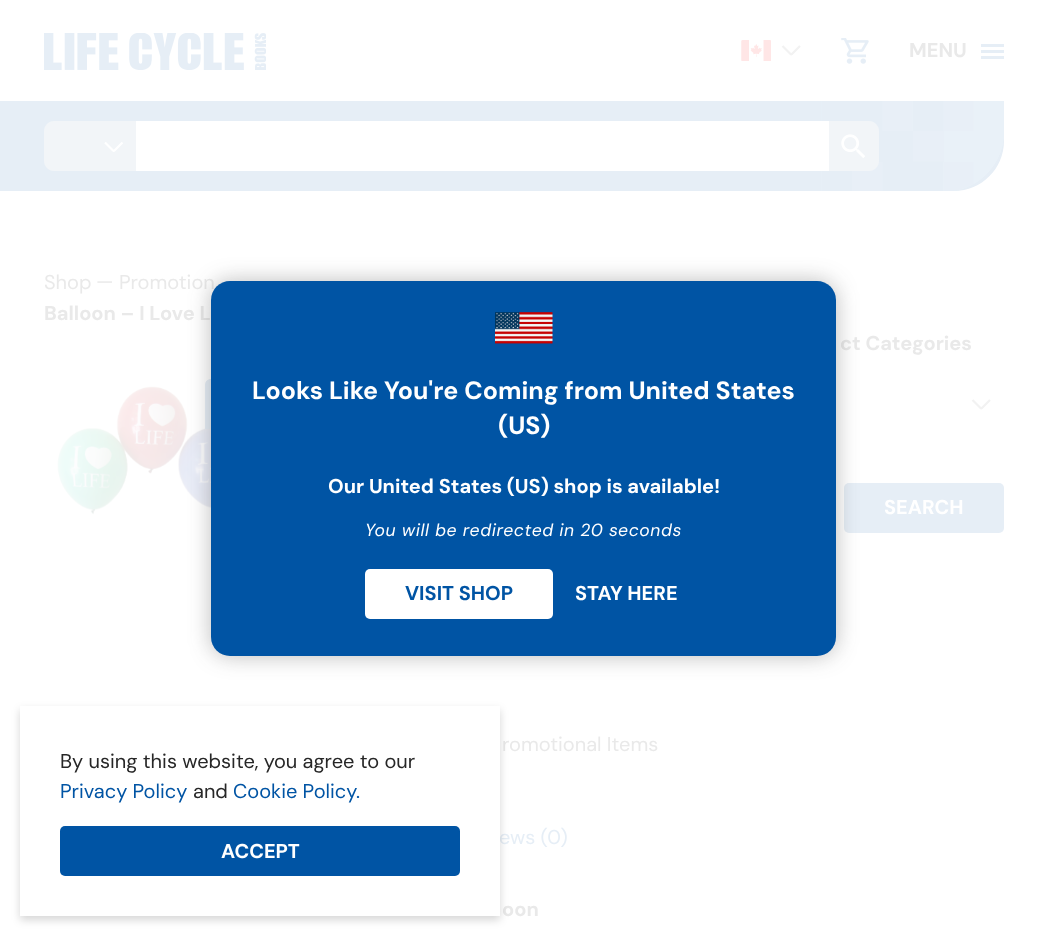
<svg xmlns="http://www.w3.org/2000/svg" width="1047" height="936">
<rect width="100%" height="100%" fill="#fff"/>
<image x="44" y="33" width="222" height="37" href="media/1.png"/>
<image x="741" y="40" width="30" height="21" href="media/2.png"/>
<path d="M782.5 46l8 8c.5 .5 1 .5 1.5 0l8-8" fill="none" stroke="#f2f2f2" stroke-width="2.2"/>
<image x="841" y="38" width="28" height="26" href="media/3.png"/>
<text x="909" y="57" style="font-family:DM Sans;font-size:20px;font-weight:bold;fill:#e9e9e9">MENU</text>
<rect x="981" y="44" width="23" height="3" fill="#e6eef6"/>
<rect x="981" y="50" width="23" height="3" fill="#e6eef6"/>
<rect x="981" y="56" width="23" height="3" fill="#e6eef6"/>
<path d="M0 101h1004v40c0 27.5-22.5 50-50 50h-954z" fill="#e6eef6"/>
<path d="M54 121h82v50h-82c-5.5 0-10-4.5-10-10v-30c0-5.5 4.5-10 10-10z" fill="#f2f5f8"/>
<path d="M105 142.5l8 8c.5 .5 1 .5 1.5 0l8-8" fill="none" stroke="#fff" stroke-width="2.2"/>
<image x="821" y="101" width="183" height="90" href="media/5.png"/>
<rect x="136" y="121" width="693" height="50" fill="#fff"/>
<path d="M829 121h40c5.5 0 10 4.5 10 10v30c0 5.5-4.5 10-10 10h-40z" fill="#f2f5f8"/>
<image x="841" y="134" width="25" height="25" href="media/4.png"/>
<text x="44" y="289" style="font-family:DM Sans;font-size:20px;fill:#e9e9e9">Shop</text>
<text x="96" y="288" style="font-family:DM Sans;font-size:20px;fill:#e9e9e9">—</text>
<text x="119" y="289" style="font-family:DM Sans;font-size:20px;fill:#e9e9e9">Promotion</text>
<text x="44" y="320" style="font-family:DM Sans;font-size:20px;font-weight:bold;fill:#e9e9e9">Balloon – I Love L</text>
<image x="57" y="386" width="154" height="129" href="media/6.png"/>
<path d="M211 379h44v44c0 3.5-2.5 6-6 6h-44v-44c0-3.5 2.5-6 6-6z" fill="#e6eef6"/>
<text x="502" y="751" style="font-family:DM Sans;font-size:20px;fill:#e9e9e9">romotional Items</text>
<text x="499" y="844" style="font-family:DM Sans;font-size:20px;fill:#e6eef6">ews (0)</text>
<text x="502" y="916" style="font-family:DM Sans;font-size:20px;font-weight:bold;fill:#e9e9e9">oon</text>
<text x="840" y="350" style="font-family:DM Sans;font-size:20px;font-weight:bold;fill:#e9e9e9">ct Categories</text>
<path d="M972.5 400l8 8c.5 .5 1 .5 1.5 0l8-8" fill="none" stroke="#f2f2f2" stroke-width="2.2"/>
<rect x="844" y="483" width="160" height="50" rx="5" fill="#e6eef6"/>
<text x="884" y="514" style="font-family:DM Sans;font-size:20px;font-weight:bold;fill:#fff">SEARCH</text>
<rect x="211" y="281" width="625" height="375" rx="19" fill="#32323252" filter="blur(11px)"/>
<rect x="211" y="281" width="625" height="375" rx="19" fill="#0054a4"/>
<image x="495" y="312" width="58" height="32" href="media/7.png"/>
<text x="252" y="399" style="font-family:DM Sans;font-size:25px;font-weight:bold;fill:#fff">Looks Like You're Coming from United States</text>
<text x="498" y="434" style="font-family:DM Sans;font-size:25px;font-weight:bold;fill:#fff">(US)</text>
<text x="328" y="493" style="font-family:DM Sans;font-size:20px;font-weight:bold;fill:#fff">Our United States (US) shop is available!</text>
<text x="365" y="536" style="font-family:DM Sans;font-size:17.5px;font-style:italic;letter-spacing:0.6px;fill:#fff">You will be redirected in 20 seconds</text>
<rect x="365" y="569" width="188" height="50" rx="5" fill="#fff"/>
<text x="405" y="600" style="font-family:DM Sans;font-size:20px;font-weight:bold;fill:#0054a4">VISIT SHOP</text>
<text x="575" y="600" style="font-family:DM Sans;font-size:20px;font-weight:bold;fill:#fff">STAY HERE</text>
<rect x="20" y="710" width="480" height="210" fill="#00000029" filter="blur(4px)"/>
<rect x="20" y="706" width="480" height="210" fill="#fff"/>
<text x="60" y="768" style="font-family:DM Sans;font-size:20px;fill:#272727">By using this website, you agree to our</text>
<text x="60" y="798" style="font-family:DM Sans;font-size:20px;fill:#0054a4">Privacy Policy</text>
<text x="193" y="798" style="font-family:DM Sans;font-size:20px;fill:#272727">and</text>
<text x="233" y="798" style="font-family:DM Sans;font-size:20px;fill:#0054a4">Cookie Policy.</text>
<rect x="60" y="826" width="400" height="50" rx="5" fill="#0054a4"/>
<text x="221" y="858" style="font-family:DM Sans;font-size:20px;font-weight:bold;fill:#fff">ACCEPT</text>
</svg>
